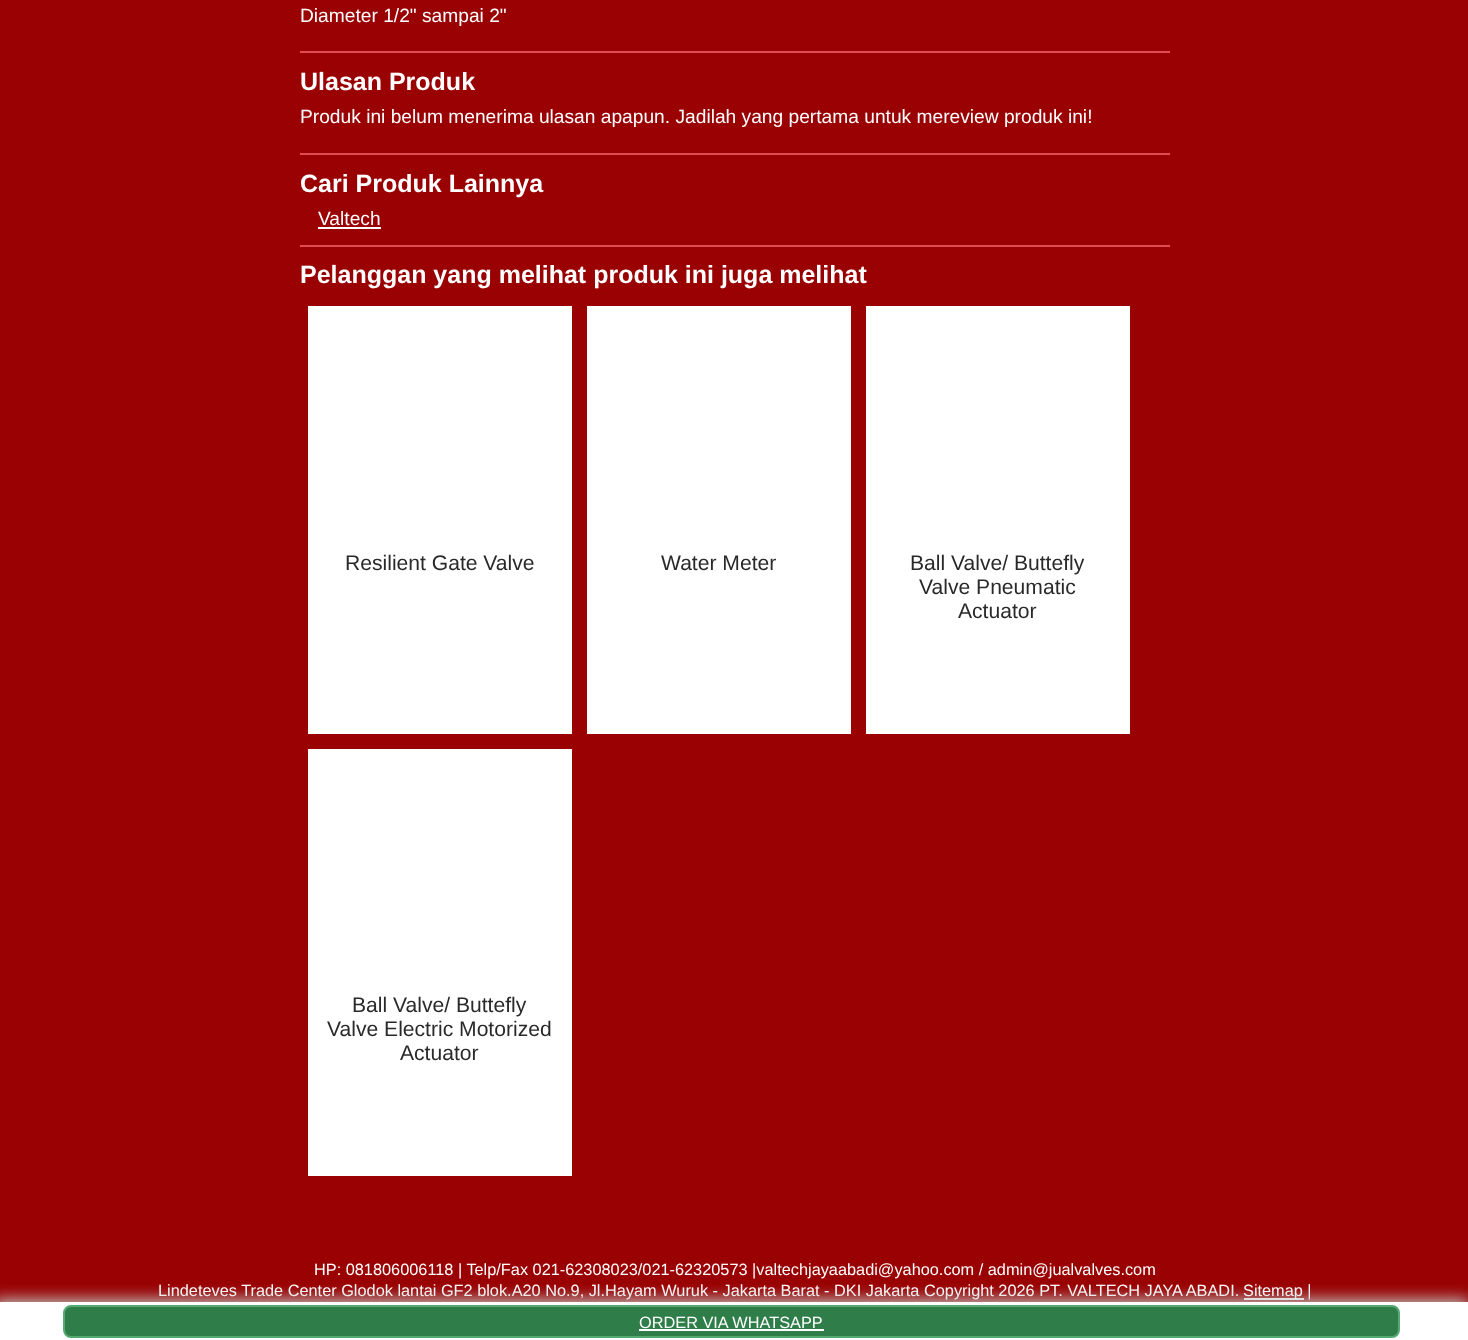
<svg xmlns="http://www.w3.org/2000/svg" width="1468" height="1340">
<rect width="100%" height="100%" fill="#990102"/>
<text x="300" y="22" style="font-family:Liberation Sans;font-size:19.2px;fill:#fff">Diameter 1/2" sampai 2"</text>
<rect x="300" y="51" width="870" height="2" fill="#e04d55"/>
<text x="300" y="90" style="font-family:Liberation Sans;font-size:25px;font-weight:bold;fill:#fff">Ulasan Produk</text>
<text x="300" y="123" style="font-family:Liberation Sans;font-size:19.2px;fill:#fff">Produk ini belum menerima ulasan apapun. Jadilah yang pertama untuk mereview produk ini!</text>
<rect x="300" y="153" width="870" height="2" fill="#e04d55"/>
<text x="300" y="192" style="font-family:Liberation Sans;font-size:25px;font-weight:bold;fill:#fff">Cari Produk Lainnya</text>
<text x="318" y="225" style="font-family:Liberation Sans;font-size:19.2px;fill:#fff">Valtech</text>
<rect x="318" y="227" width="63" height="2" fill="#fff"/>
<rect x="300" y="245" width="870" height="2" fill="#e04d55"/>
<text x="300" y="283" style="font-family:Liberation Sans;font-size:25px;font-weight:bold;fill:#fff">Pelanggan yang melihat produk ini juga melihat</text>
<rect x="308" y="306" width="264" height="428" fill="#fff"/>
<text x="345" y="570" style="font-family:Liberation Sans;font-size:21.1px;fill:#292929">Resilient Gate Valve</text>
<rect x="587" y="306" width="264" height="428" fill="#fff"/>
<text x="661" y="570" style="font-family:Liberation Sans;font-size:21.1px;fill:#292929">Water Meter</text>
<rect x="866" y="306" width="264" height="428" fill="#fff"/>
<text x="910" y="570" style="font-family:Liberation Sans;font-size:21.1px;fill:#292929">Ball Valve/ Buttefly</text>
<text x="919" y="594" style="font-family:Liberation Sans;font-size:21.1px;fill:#292929">Valve Pneumatic</text>
<text x="958" y="618" style="font-family:Liberation Sans;font-size:21.1px;fill:#292929">Actuator</text>
<rect x="308" y="749" width="264" height="427" fill="#fff"/>
<text x="352" y="1012" style="font-family:Liberation Sans;font-size:21.1px;fill:#292929">Ball Valve/ Buttefly</text>
<text x="327" y="1036" style="font-family:Liberation Sans;font-size:21.1px;fill:#292929">Valve Electric Motorized</text>
<text x="400" y="1060" style="font-family:Liberation Sans;font-size:21.1px;fill:#292929">Actuator</text>
<text x="314" y="1275" style="font-family:Liberation Sans;font-size:16.32px;fill:#fff">HP: 081806006118 | Telp/Fax 021-62308023/021-62320573 |valtechjayaabadi@yahoo.com / admin@jualvalves.com</text>
<text x="158" y="1296" style="font-family:Liberation Sans;font-size:16.32px;fill:#fff">Lindeteves Trade Center Glodok lantai GF2 blok.A20 No.9, Jl.Hayam Wuruk - Jakarta Barat - DKI Jakarta</text>
<text x="924" y="1296" style="font-family:Liberation Sans;font-size:16.32px;fill:#fff">Copyright 2026 PT. VALTECH JAYA ABADI.</text>
<rect x="1244" y="1298" width="60" height="2" fill="#fff"/>
<text x="1243" y="1296" style="font-family:Liberation Sans;font-size:16.32px;fill:#fff">Sitemap |</text>
<rect x="-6" y="1299" width="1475" height="39" fill="#c0c0c0" filter="blur(7.5px)"/>
<rect y="1302" width="1468" height="38" fill="#fff"/>
<rect x="64" y="1306" width="1335" height="31" rx="7" fill="#2f7e49" stroke="#56aa71" stroke-width="2"/>
<text x="639" y="1328" style="font-family:Liberation Sans;font-size:16.32px;fill:#fff">ORDER VIA WHATSAPP</text>
<rect x="639" y="1329" width="185" height="2" fill="#fff"/>
</svg>
